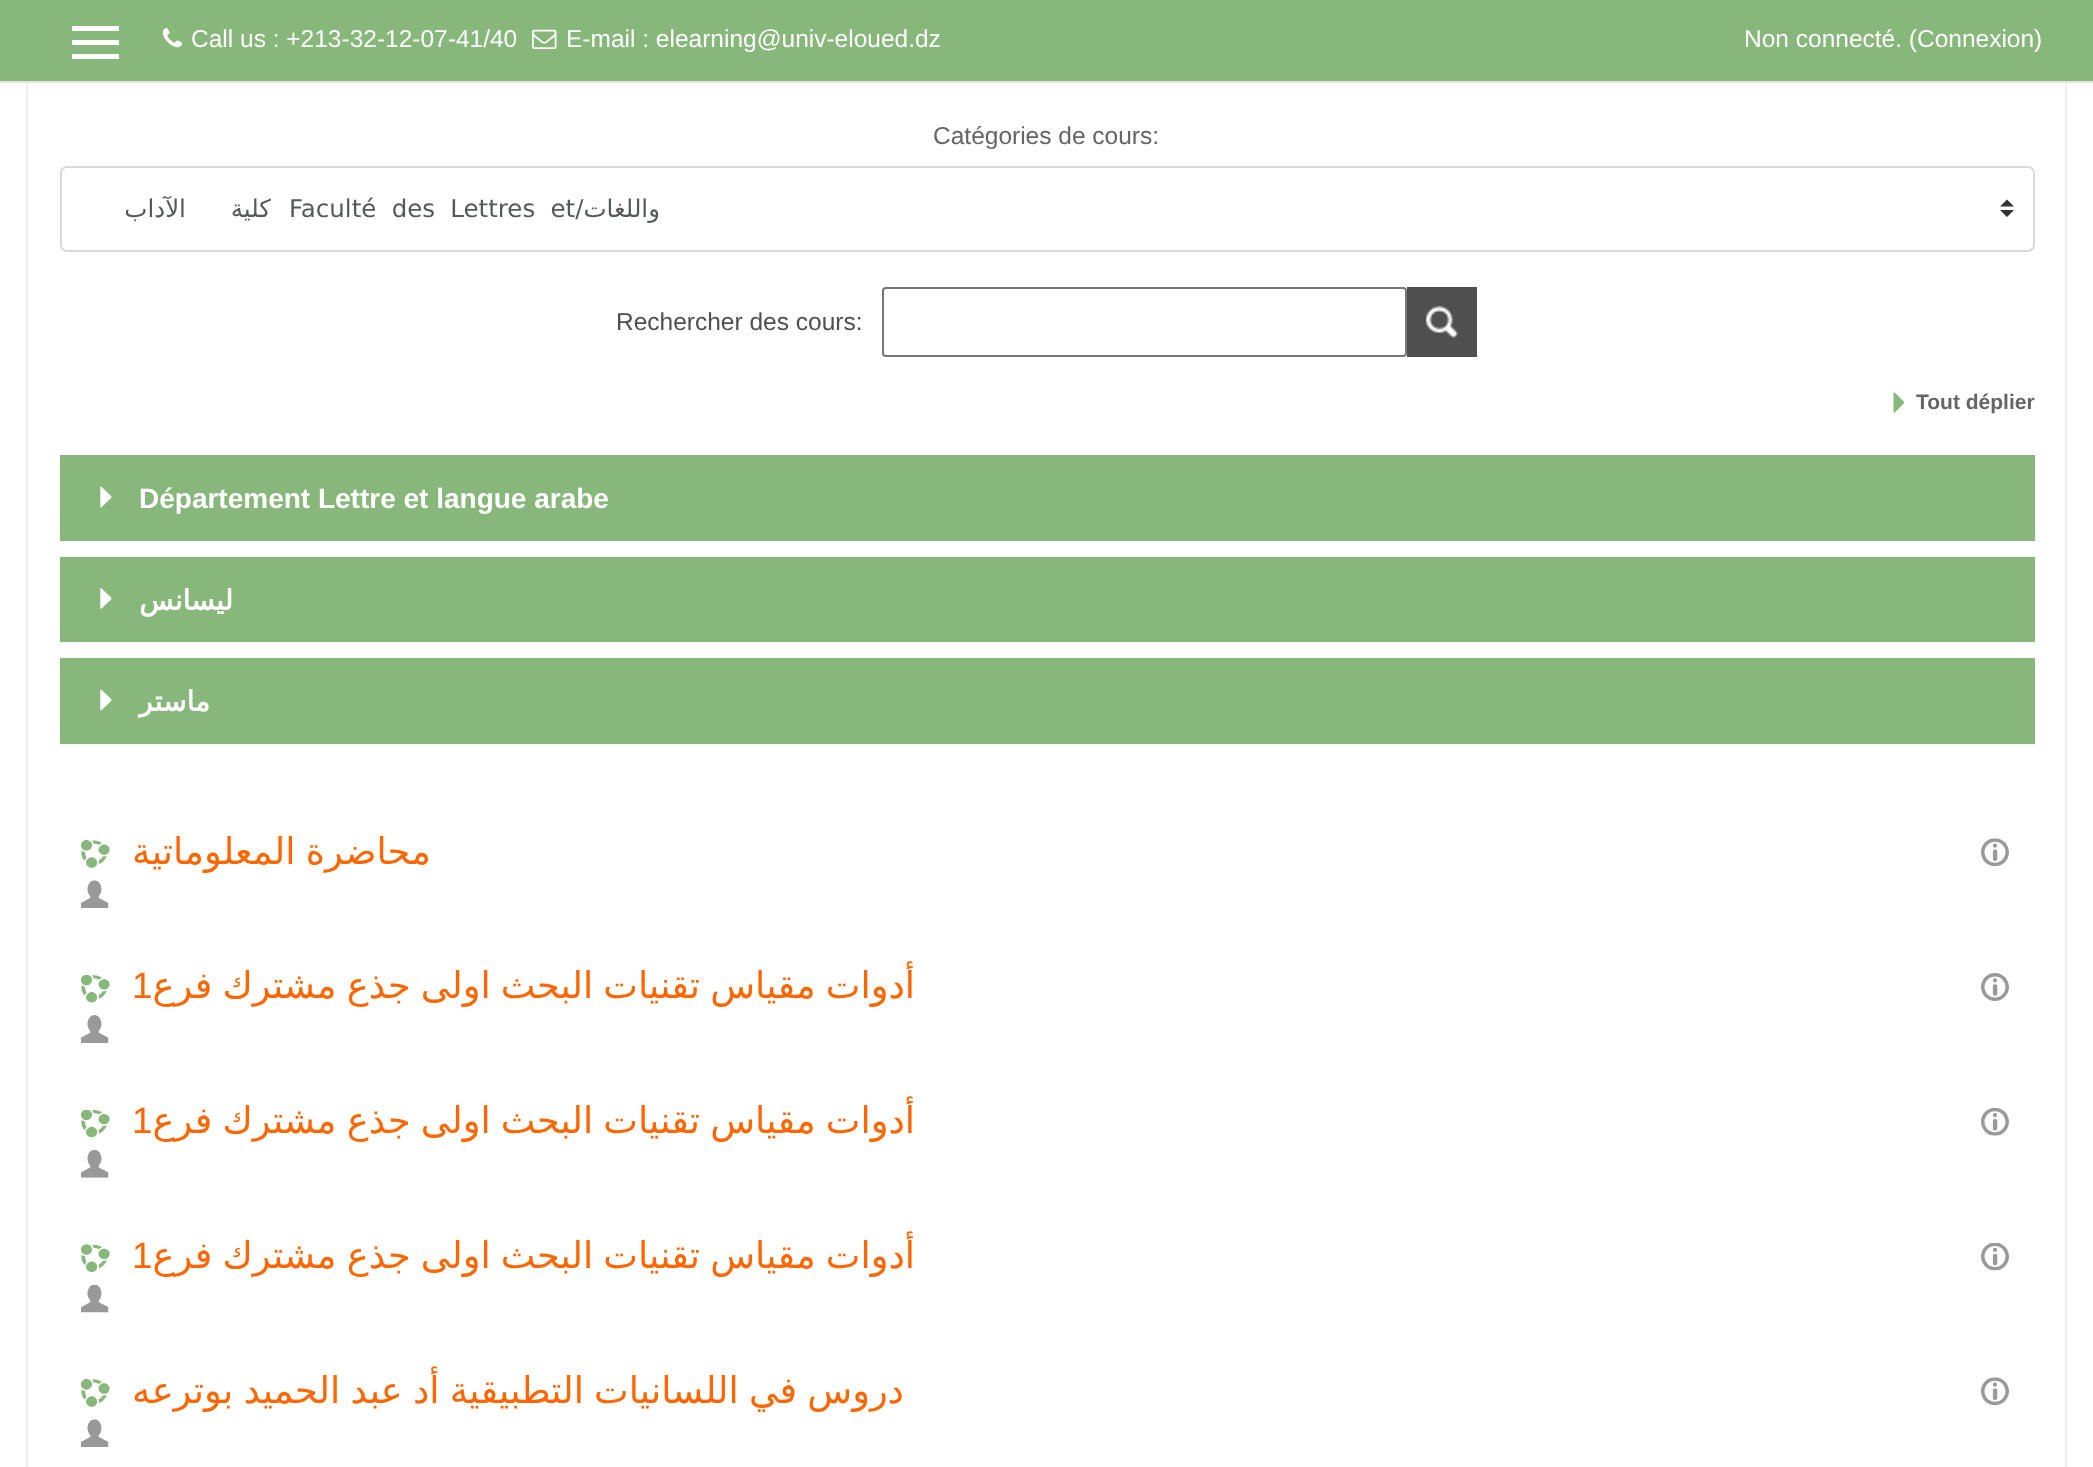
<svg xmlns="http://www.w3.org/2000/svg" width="2093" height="1467">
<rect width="100%" height="100%" fill="#fff"/>
<rect x="27" y="68" width="2039" height="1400" fill="none" stroke="#eee" stroke-width="2"/>
<rect width="2093" height="81" fill="#88b77b"/>
<rect y="81" width="2093" height="2" fill="#e8e3e3"/>
<text x="1744" y="47" style="font-family:Liberation Sans;font-size:24.5px;fill:#fff">Non connecté. (Connexion)</text>
<text x="566" y="47" style="font-family:Liberation Sans;font-size:24.5px;fill:#fff">E-mail : elearning@univ-eloued.dz</text>
<image x="532" y="29" width="25" height="20" href="media/1.png"/>
<text x="191" y="47" style="font-family:Liberation Sans;font-size:24.5px;fill:#fff">Call us : +213-32-12-07-41/40</text>
<image x="162" y="28" width="20" height="20" href="media/2.png"/>
<rect x="72" y="26" width="47" height="5" fill="#fff"/>
<rect x="72" y="40" width="47" height="5" fill="#fff"/>
<rect x="72" y="54" width="47" height="5" fill="#fff"/>
<text x="933" y="144" style="font-family:Liberation Sans;font-size:24.5px;fill:#656565">Catégories de cours:</text>
<path d="M2007 199.5l-7 7h14zm0 17.5l-7-7h14z" fill="#333"/>
<rect x="61" y="167" width="1973" height="84" rx="6" fill="none" stroke="#d9d9d9" stroke-width="2"/>
<text x="660" y="217" word-spacing="7.5" style="font-family:DejaVu Sans;font-size:24.5px;direction:rtl;fill:#55595c">واللغات/Faculté des Lettres et</text>
<text x="271" y="217" word-spacing="37" style="font-family:DejaVu Sans;font-size:24.5px;direction:rtl;fill:#55595c">كلية الآداب</text>
<rect x="1407" y="287" width="70" height="70" fill="#4f4f4f"/>
<image x="1426" y="306" width="32" height="32" href="media/3.png"/>
<rect x="883" y="288" width="523" height="68" rx="3" fill="none" stroke="#767676" stroke-width="2"/>
<text x="616" y="330" style="font-family:Liberation Sans;font-size:24.5px;fill:#4f4f4f">Rechercher des cours:</text>
<text x="1916" y="409" style="font-family:Liberation Sans;font-size:21px;font-weight:bold;fill:#656565">Tout déplier</text>
<image x="1893" y="392" width="11" height="21" href="media/4.png"/>
<rect x="60" y="455" width="1975" height="86" fill="#88b77b"/>
<image x="100" y="486" width="12" height="22" href="media/5.png"/>
<text x="139" y="508" style="font-family:Liberation Sans;font-size:28px;font-weight:bold;fill:#fff">Département Lettre et langue arabe</text>
<rect x="60" y="557" width="1975" height="85" fill="#88b77b"/>
<image x="100" y="588" width="12" height="21" href="media/6.png"/>
<text x="233" y="610" style="font-family:DejaVu Sans;font-size:28px;font-weight:bold;direction:rtl;fill:#fff">ليسانس</text>
<rect x="60" y="658" width="1975" height="86" fill="#88b77b"/>
<image x="100" y="689" width="12" height="22" href="media/5.png"/>
<text x="210" y="711" style="font-family:DejaVu Sans;font-size:28px;font-weight:bold;direction:rtl;fill:#fff">ماستر</text>
<image x="1981" y="838" width="28" height="28" href="media/7.png"/>
<image x="81" y="840" width="29" height="28" href="media/8.png"/>
<text x="431" y="864" word-spacing="-1.5" style="font-family:DejaVu Sans;font-size:36.75px;direction:rtl;fill:#f60">محاضرة المعلوماتية</text>
<image x="81" y="880" width="28" height="28" href="media/9.png"/>
<image x="1981" y="973" width="28" height="28" href="media/10.png"/>
<image x="81" y="975" width="29" height="28" href="media/11.png"/>
<text x="915" y="998" word-spacing="-1.5" style="font-family:DejaVu Sans;font-size:36.75px;direction:rtl;fill:#f60">أدوات مقياس تقنيات البحث اولى جذع مشترك فرع</text>
<text x="132" y="998" style="font-family:Liberation Sans;font-size:36.75px;fill:#f60">1</text>
<image x="81" y="1015" width="28" height="28" href="media/12.png"/>
<image x="1981" y="1108" width="28" height="28" href="media/13.png"/>
<image x="81" y="1110" width="29" height="28" href="media/14.png"/>
<text x="915" y="1133" word-spacing="-1.5" style="font-family:DejaVu Sans;font-size:36.75px;direction:rtl;fill:#f60">أدوات مقياس تقنيات البحث اولى جذع مشترك فرع</text>
<text x="132" y="1133" style="font-family:Liberation Sans;font-size:36.75px;fill:#f60">1</text>
<image x="81" y="1150" width="28" height="28" href="media/15.png"/>
<image x="1981" y="1243" width="28" height="28" href="media/16.png"/>
<image x="81" y="1244" width="29" height="28" href="media/17.png"/>
<text x="915" y="1268" word-spacing="-1.5" style="font-family:DejaVu Sans;font-size:36.75px;direction:rtl;fill:#f60">أدوات مقياس تقنيات البحث اولى جذع مشترك فرع</text>
<text x="132" y="1268" style="font-family:Liberation Sans;font-size:36.75px;fill:#f60">1</text>
<image x="81" y="1285" width="28" height="28" href="media/18.png"/>
<image x="1981" y="1377" width="28" height="28" href="media/19.png"/>
<image x="81" y="1379" width="29" height="28" href="media/20.png"/>
<text x="904" y="1403" word-spacing="-1.5" style="font-family:DejaVu Sans;font-size:36.75px;direction:rtl;fill:#f60">دروس في اللسانيات التطبيقية أد عبد الحميد بوترعه</text>
<image x="81" y="1419" width="28" height="28" href="media/9.png"/>
</svg>
